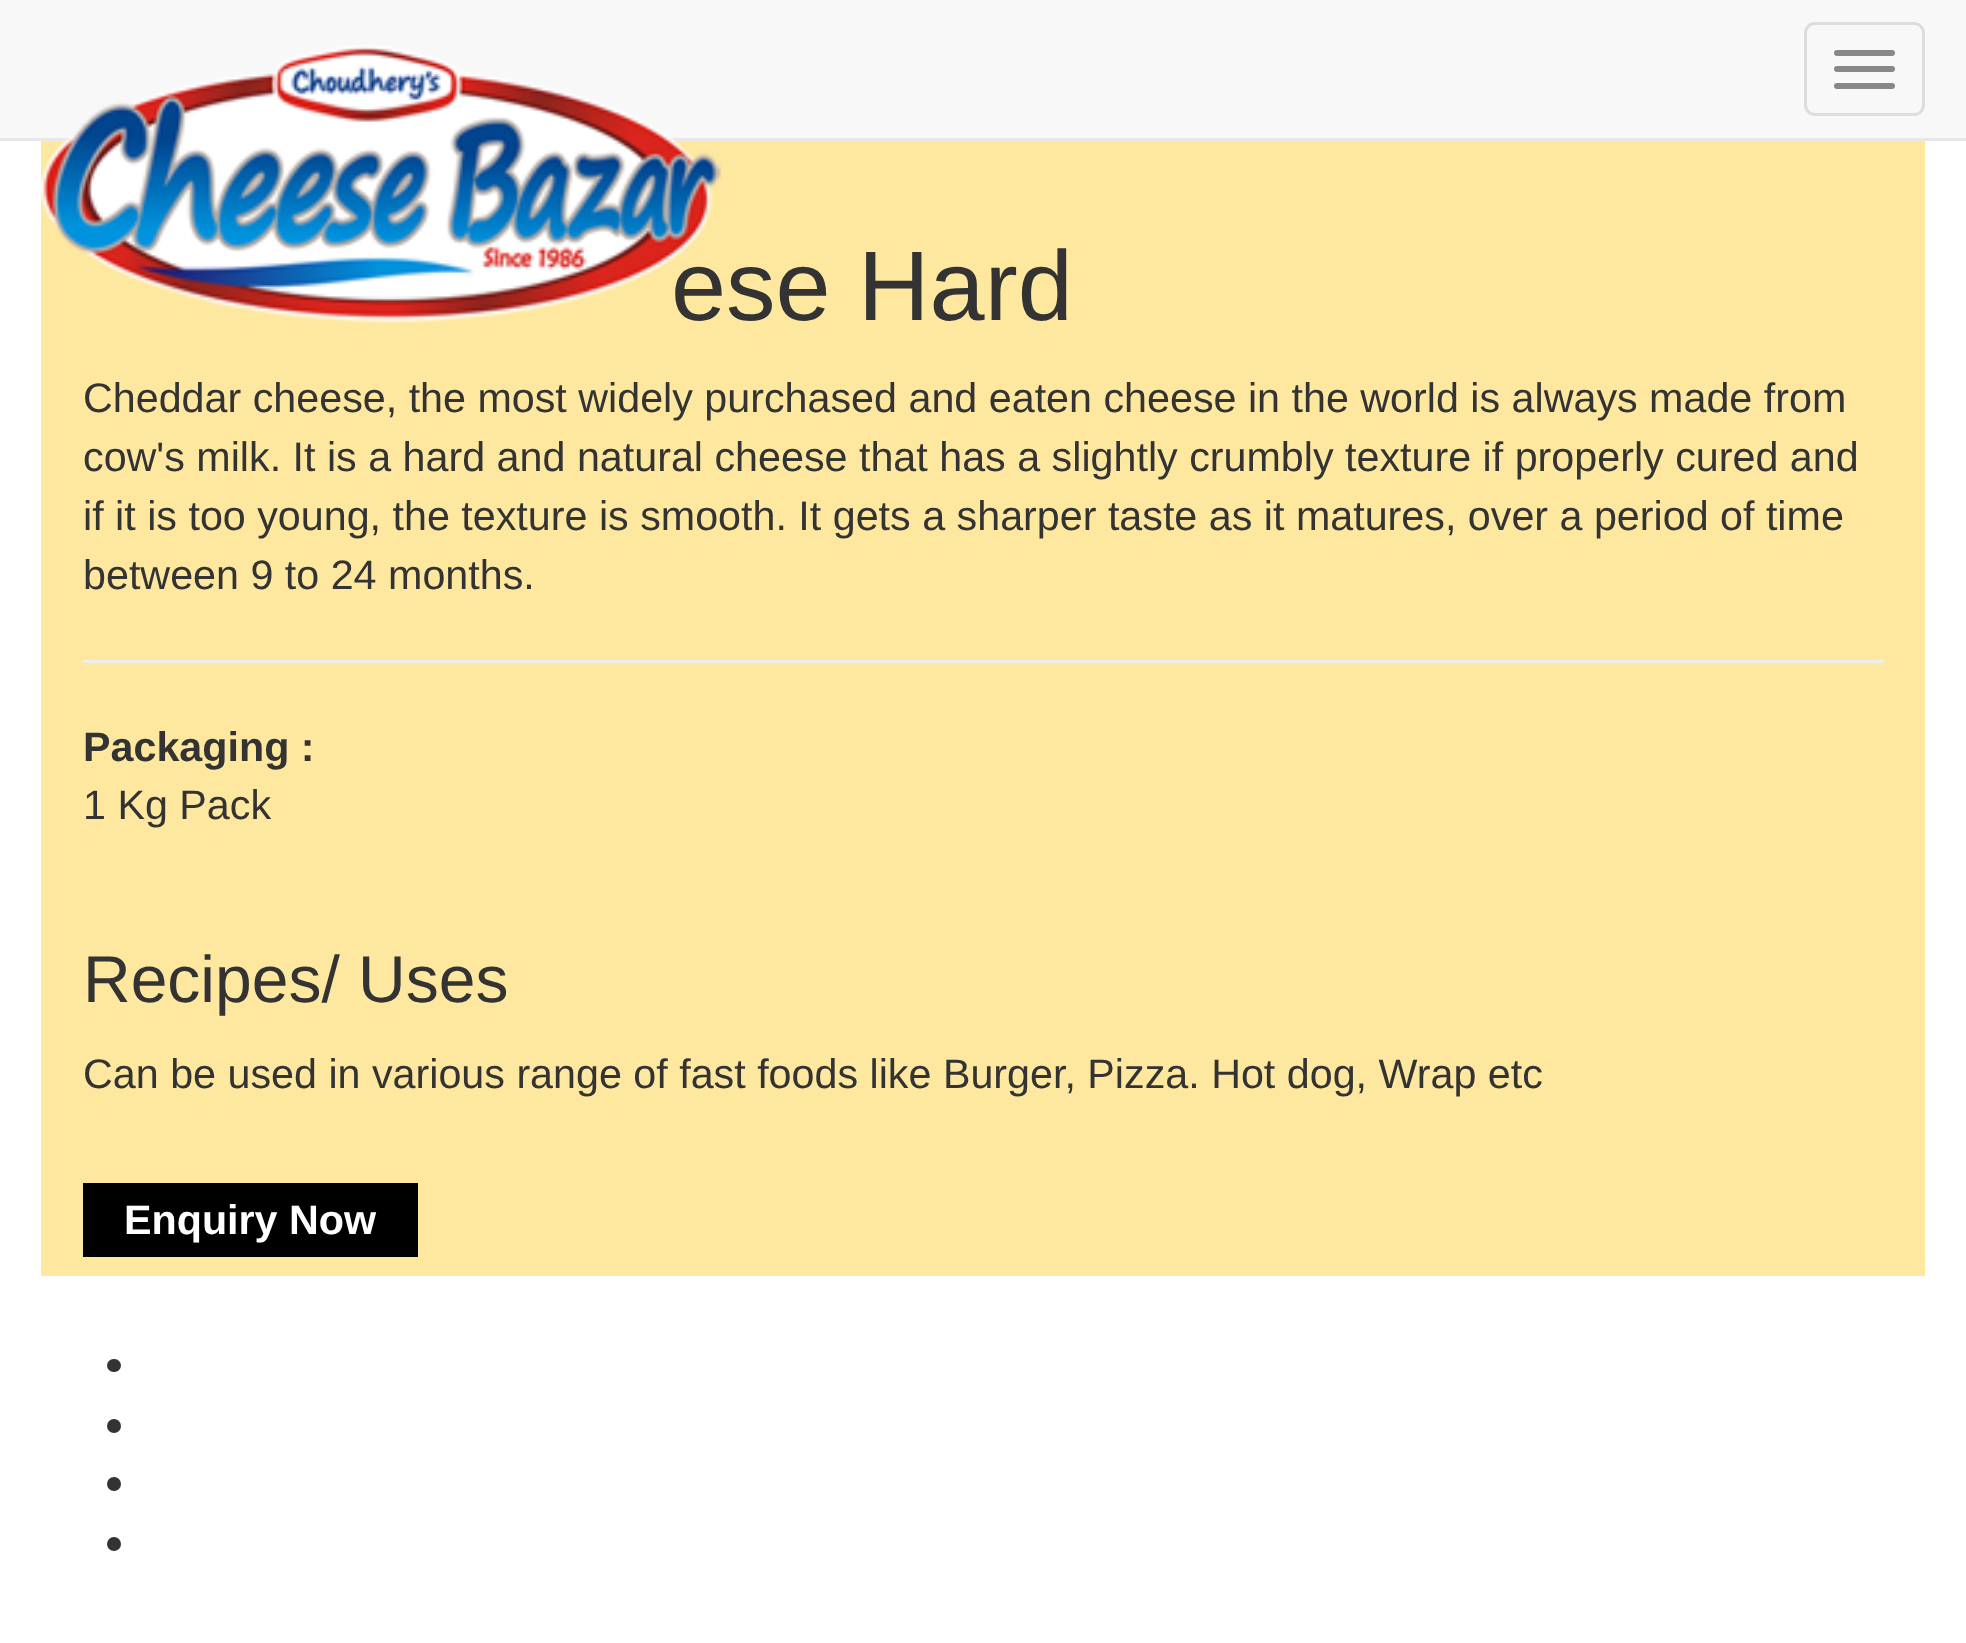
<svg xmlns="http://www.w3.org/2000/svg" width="1966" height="1643">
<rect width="100%" height="100%" fill="#fff"/>
<rect width="1966" height="138" fill="#f8f8f8"/>
<rect y="138" width="1966" height="3" fill="#e7e7e7"/>
<rect x="41" y="141" width="1884" height="1135" fill="#fee79e"/>
<text x="671" y="320" style="font-family:Liberation Sans;font-size:99px;fill:#333">ese Hard</text>
<image x="41" y="45" width="681" height="278" href="media/1.png"/>
<rect x="1805.5" y="23.5" width="118" height="91" rx="9.5" fill="none" stroke="#ddd" stroke-width="3"/>
<rect x="1834" y="50" width="61" height="6" rx="3" fill="#888"/>
<rect x="1834" y="66" width="61" height="6" rx="3" fill="#888"/>
<rect x="1834" y="83" width="61" height="6" rx="3" fill="#888"/>
<text x="83" y="412" style="font-family:Liberation Sans;font-size:41.25px;fill:#333">Cheddar cheese, the most widely purchased and eaten cheese in the world is always made from</text>
<text x="83" y="471" style="font-family:Liberation Sans;font-size:41.25px;fill:#333">cow's milk. It is a hard and natural cheese that has a slightly crumbly texture if properly cured and</text>
<text x="83" y="530" style="font-family:Liberation Sans;font-size:41.25px;fill:#333">if it is too young, the texture is smooth. It gets a sharper taste as it matures, over a period of time</text>
<text x="83" y="589" style="font-family:Liberation Sans;font-size:41.25px;fill:#333">between 9 to 24 months.</text>
<rect x="83" y="660" width="1801" height="3" fill="#eee"/>
<text x="83" y="761" style="font-family:Liberation Sans;font-size:41.25px;font-weight:bold;fill:#333">Packaging :</text>
<text x="83" y="819" style="font-family:Liberation Sans;font-size:41.25px;fill:#333">1 Kg Pack</text>
<text x="83" y="1002" style="font-family:Liberation Sans;font-size:66px;fill:#333">Recipes/ Uses</text>
<text x="83" y="1088" style="font-family:Liberation Sans;font-size:41.25px;fill:#333">Can be used in various range of fast foods like Burger, Pizza. Hot dog, Wrap etc</text>
<rect x="83" y="1183" width="335" height="74" fill="#000"/>
<text x="124" y="1234" style="font-family:Liberation Sans;font-size:41.25px;font-weight:bold;fill:#fff">Enquiry Now</text>
<rect x="107" y="1359" width="14" height="13" rx="6.5" fill="#333"/>
<circle cx="114" cy="1426" r="7" fill="#333"/>
<circle cx="114" cy="1484" r="7" fill="#333"/>
<circle cx="114" cy="1544" r="7" fill="#333"/>
</svg>
